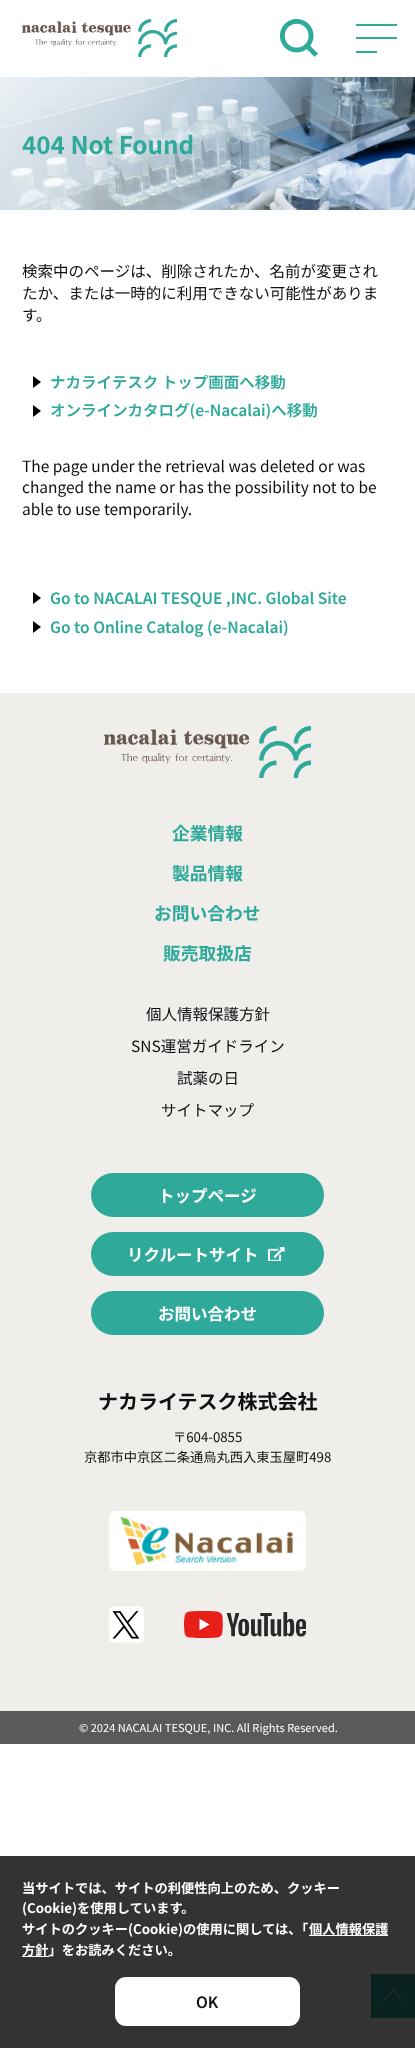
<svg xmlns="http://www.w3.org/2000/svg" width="415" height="2048">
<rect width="100%" height="100%" fill="#fff"/>
<rect y="1856" width="415" height="192" fill="#333"/>
<image x="22" y="19" width="155" height="38" href="media/1.png"/>
<image x="280" y="19" width="38" height="38" href="media/2.png"/>
<rect x="356" y="24" width="41" height="2" fill="#2fa999"/>
<rect x="356" y="37" width="41" height="2" fill="#2fa999"/>
<rect x="356" y="51" width="21" height="2" fill="#2fa999"/>
<image x="0" y="77" width="415" height="133" href="media/3.png"/>
<text x="22" y="154" style="font-family:Noto Sans JP;font-size:24.25px;font-weight:bold;fill:#2fa999">404 Not Found</text>
<text x="22" y="277" style="font-family:Noto Sans JP;font-size:15.5px;fill:#101010">検索中のページは、削除されたか、名前が変更され</text>
<text x="22" y="299" style="font-family:Noto Sans JP;font-size:15.5px;fill:#101010">たか、または一時的に利用できない可能性がありま</text>
<text x="22" y="321" style="font-family:Noto Sans JP;font-size:15.5px;fill:#101010">す。</text>
<path d="M33 388v-12l8 6z" fill="#000"/>
<text x="50" y="388" style="font-family:Noto Sans JP;font-size:15.5px;font-weight:600;fill:#2fa999">ナカライテスク トップ画面へ移動</text>
<path d="M33 417v-12l8 6z" fill="#000"/>
<text x="50" y="416" style="font-family:Noto Sans JP;font-size:15.5px;font-weight:600;fill:#2fa999">オンラインカタログ(e-Nacalai)へ移動</text>
<text x="22" y="472" style="font-family:Noto Sans JP;font-size:15.5px;fill:#101010">The page under the retrieval was deleted or was</text>
<text x="22" y="493" style="font-family:Noto Sans JP;font-size:15.5px;fill:#101010">changed the name or has the possibility not to be</text>
<text x="22" y="515" style="font-family:Noto Sans JP;font-size:15.5px;fill:#101010">able to use temporarily.</text>
<path d="M33 604v-12l8 6z" fill="#000"/>
<text x="50" y="604" style="font-family:Noto Sans JP;font-size:15.5px;font-weight:600;fill:#2fa999">Go to NACALAI TESQUE ,INC. Global Site</text>
<path d="M33 633v-12l8 6z" fill="#000"/>
<text x="50" y="633" style="font-family:Noto Sans JP;font-size:15.5px;font-weight:600;fill:#2fa999">Go to Online Catalog (e-Nacalai)</text>
<rect y="693" width="415" height="1018" fill="#f0eeeb"/>
<image x="104" y="726" width="207" height="52" href="media/4.png"/>
<text x="172" y="840" style="font-family:Noto Sans JP;font-size:17.75px;font-weight:bold;fill:#2fa999">企業情報</text>
<text x="172" y="880" style="font-family:Noto Sans JP;font-size:17.75px;font-weight:bold;fill:#2fa999">製品情報</text>
<text x="154" y="920" style="font-family:Noto Sans JP;font-size:17.75px;font-weight:bold;fill:#2fa999">お問い合わせ</text>
<text x="163" y="960" style="font-family:Noto Sans JP;font-size:17.75px;font-weight:bold;fill:#2fa999">販売取扱店</text>
<text x="146" y="1020" style="font-family:Noto Sans JP;font-size:15.5px;fill:#101010">個人情報保護方針</text>
<text x="131" y="1052" style="font-family:Noto Sans JP;font-size:15.5px;fill:#101010">SNS運営ガイドライン</text>
<text x="177" y="1084" style="font-family:Noto Sans JP;font-size:15.5px;fill:#101010">試薬の日</text>
<text x="161" y="1116" style="font-family:Noto Sans JP;font-size:15.5px;fill:#101010">サイトマップ</text>
<rect x="91" y="1173" width="233" height="44" rx="22" fill="#2fa999"/>
<text x="158" y="1202" style="font-family:Noto Sans JP;font-size:16.5px;font-weight:bold;fill:#fff">トップページ</text>
<rect x="91" y="1232" width="233" height="44" rx="22" fill="#2fa999"/>
<image x="268" y="1247" width="17" height="14" href="media/5.png"/>
<text x="127" y="1261" style="font-family:Noto Sans JP;font-size:16.5px;font-weight:bold;fill:#fff">リクルートサイト</text>
<rect x="91" y="1291" width="233" height="44" rx="22" fill="#2fa999"/>
<text x="158" y="1320" style="font-family:Noto Sans JP;font-size:16.5px;font-weight:bold;fill:#fff">お問い合わせ</text>
<text x="98" y="1409" style="font-family:Noto Sans JP;font-size:20px;font-weight:bold;fill:#101010">ナカライテスク株式会社</text>
<text x="173" y="1442" style="font-family:Noto Sans JP;font-size:13.25px;fill:#101010">〒604-0855</text>
<text x="84" y="1462" style="font-family:Noto Sans JP;font-size:13.25px;fill:#101010">京都市中京区二条通烏丸西入東玉屋町498</text>
<image x="109" y="1511" width="197" height="60" href="media/6.png"/>
<image x="109" y="1606" width="35" height="37" href="media/7.png"/>
<image x="184" y="1611" width="122" height="27" href="media/8.png"/>
<rect y="1711" width="415" height="33" fill="#5a5a5a"/>
<text x="79" y="1732" style="font-family:Noto Sans JP;font-size:11.1px;fill:#fff">© 2024 NACALAI TESQUE, INC. All Rights Reserved.</text>
<rect x="371" y="1974" width="44" height="44" fill="#09221f"/>
<path d="M403.5 2003l-10.5-12.5l-10.5 12.5l-.5-.5l11-13.5l11 13.5z" fill="#333"/>
<text x="22" y="1893" style="font-family:Noto Sans JP;font-size:13.25px;font-weight:bold;fill:#fff">当サイトでは、サイトの利便性向上のため、クッキー</text>
<text x="22" y="1913" style="font-family:Noto Sans JP;font-size:13.25px;font-weight:bold;fill:#fff">(Cookie)を使用しています。</text>
<text x="22" y="1934" style="font-family:Noto Sans JP;font-size:13.25px;font-weight:bold;fill:#fff">サイトのクッキー(Cookie)の使用に関しては、「</text>
<rect x="309" y="1935" width="79" height="1" fill="#fff"/>
<text x="309" y="1934" style="font-family:Noto Sans JP;font-size:13.25px;font-weight:bold;fill:#fff">個人情報保護</text>
<rect x="22" y="1956" width="27" height="1" fill="#fff"/>
<text x="22" y="1955" style="font-family:Noto Sans JP;font-size:13.25px;font-weight:bold;fill:#fff">方針」をお読みください。</text>
<rect x="115" y="1977" width="185" height="49" rx="11" fill="#fff"/>
<text x="196" y="2008" style="font-family:Noto Sans JP;font-size:15.5px;font-weight:600;fill:#101010">OK</text>
</svg>
